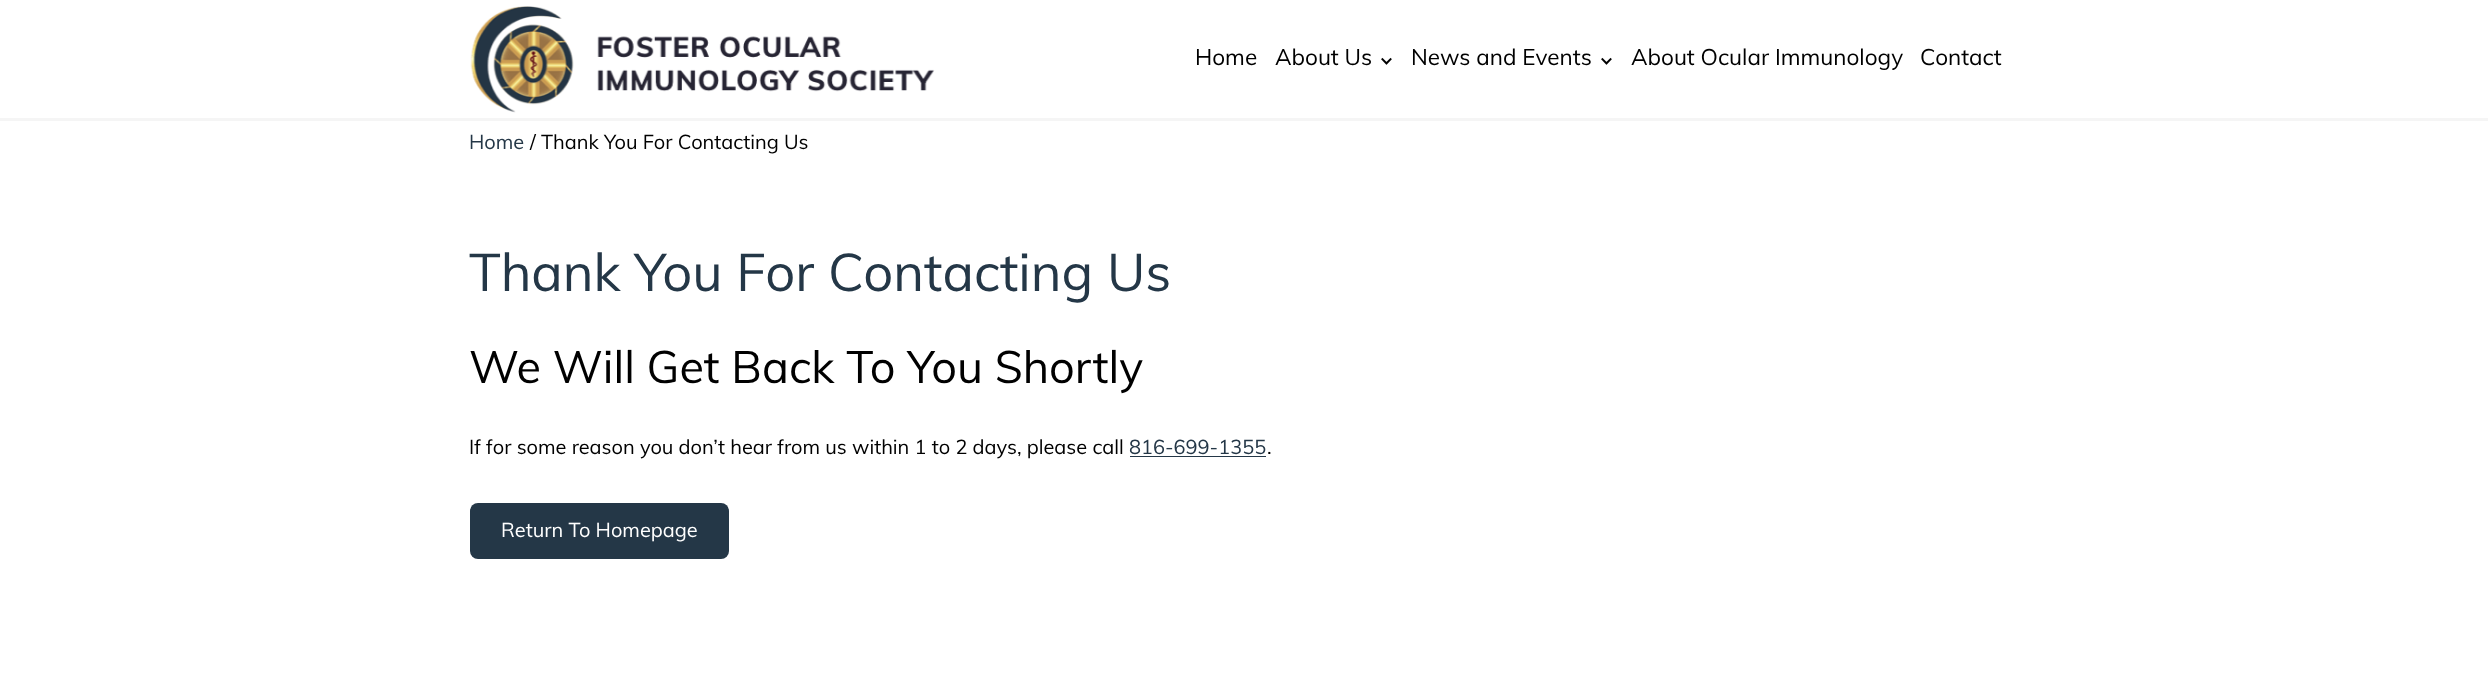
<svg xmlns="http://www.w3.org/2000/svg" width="2488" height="686">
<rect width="100%" height="100%" fill="#fff"/>
<rect y="118" width="2488" height="3" fill="#f5f5f5"/>
<image x="470" y="6" width="465" height="107" href="media/1.png"/>
<text x="1195" y="65" style="font-family:Mulish;font-size:22.5px;fill:#000">Home</text>
<text x="1275" y="65" style="font-family:Mulish;font-size:22.5px;fill:#000">About Us</text>
<image x="1381" y="57" width="11" height="8" href="media/2.png"/>
<text x="1411" y="65" style="font-family:Mulish;font-size:22.5px;fill:#000">News and Events</text>
<image x="1601" y="57" width="11" height="8" href="media/2.png"/>
<text x="1631" y="65" style="font-family:Mulish;font-size:22.5px;fill:#000">About Ocular Immunology</text>
<text x="1920" y="65" style="font-family:Mulish;font-size:22.5px;fill:#000">Contact</text>
<text x="469" y="149" style="font-family:Mulish;font-size:20px;fill:#243747">Home</text>
<text x="530" y="149" style="font-family:Mulish;font-size:20px;fill:#000">/ Thank You For Contacting Us</text>
<text x="469" y="291" style="font-family:Mulish;font-size:52.5px;fill:#243747">Thank You For Contacting Us</text>
<text x="469" y="383" style="font-family:Mulish;font-size:45px;fill:#000">We Will Get Back To You Shortly</text>
<text x="469" y="454" style="font-family:Mulish;font-size:20px;fill:#000">If for some reason you don’t hear from us within 1 to 2 days, please call</text>
<text x="1129" y="454" style="font-family:Mulish;font-size:20px;fill:#243747">816-699-1355</text>
<rect x="1130" y="456" width="136" height="1" fill="#243747"/>
<text x="1267" y="454" style="font-family:Mulish;font-size:20px;fill:#000">.</text>
<rect x="470" y="503" width="259" height="56" rx="8" fill="#243747"/>
<text x="501" y="537" style="font-family:Mulish;font-size:20px;fill:#fff">Return To Homepage</text>
</svg>
